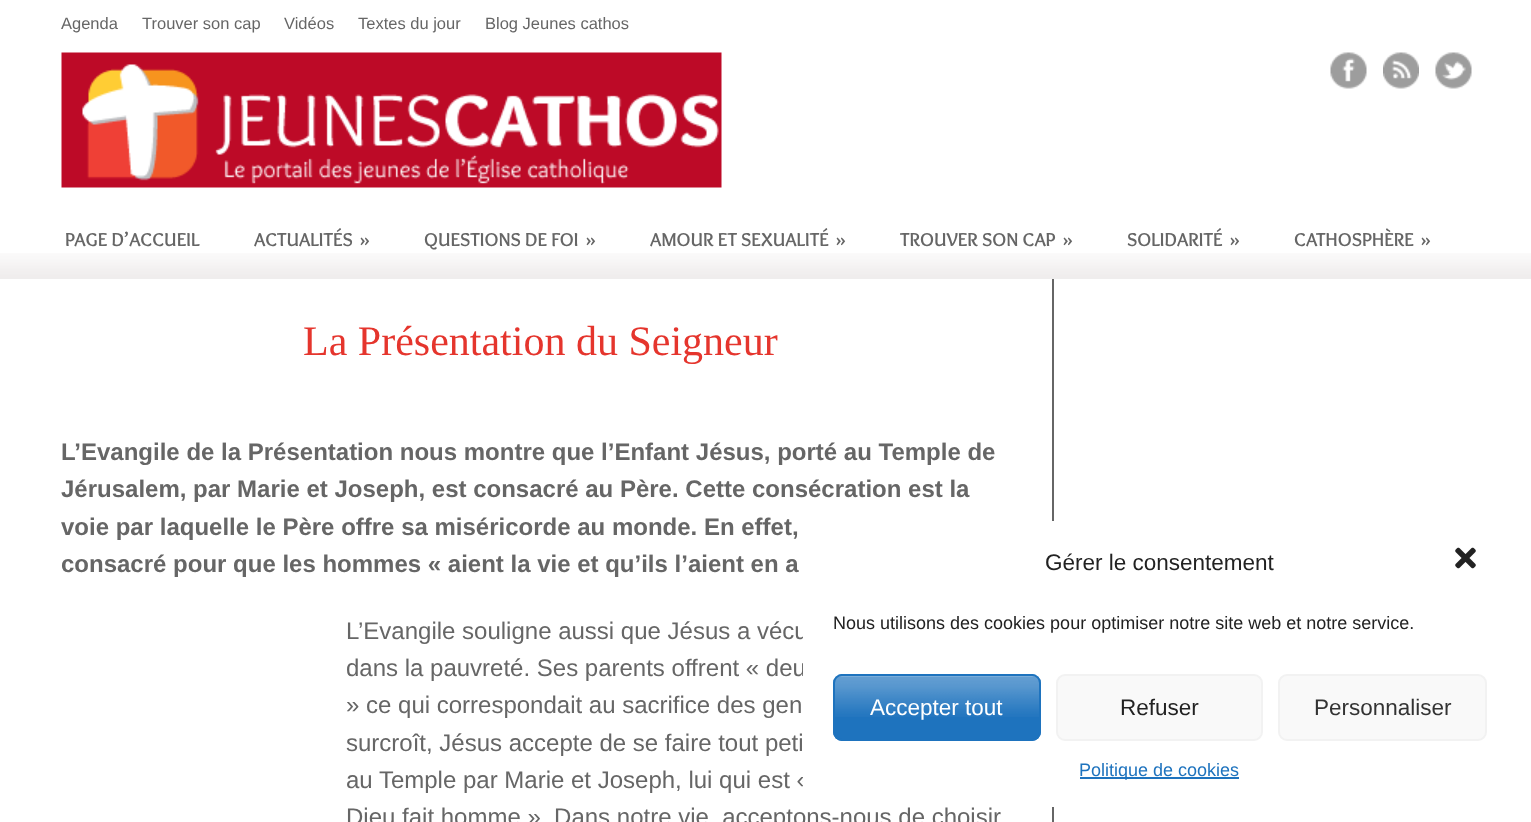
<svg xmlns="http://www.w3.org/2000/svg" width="1531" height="822">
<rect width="100%" height="100%" fill="#fff"/>
<text x="61" y="29" style="font-family:Liberation Sans;font-size:16.5px;fill:#666">Agenda</text>
<text x="142" y="29" style="font-family:Liberation Sans;font-size:16.5px;fill:#666">Trouver son cap</text>
<text x="284" y="29" style="font-family:Liberation Sans;font-size:16.5px;fill:#666">Vidéos</text>
<text x="358" y="29" style="font-family:Liberation Sans;font-size:16.5px;fill:#666">Textes du jour</text>
<text x="485" y="29" style="font-family:Liberation Sans;font-size:16.5px;fill:#666">Blog Jeunes cathos</text>
<image x="61" y="52" width="661" height="136" href="media/1.png"/>
<image x="1330" y="52" width="37" height="37" href="media/2.png"/>
<image x="1383" y="52" width="36" height="37" href="media/3.png"/>
<image x="1435" y="52" width="37" height="37" href="media/4.png"/>
<image x="0" y="253" width="1531" height="26" href="media/5.png"/>
<text x="65" y="246" style="font-family:Overlock;font-size:19.5px;font-weight:bold;fill:#666">PAGE D’ACCUEIL</text>
<text x="254" y="246" style="font-family:Overlock;font-size:19.5px;font-weight:bold;fill:#666">ACTUALITÉS</text>
<text x="360" y="246" style="font-family:Overlock;font-size:19.5px;font-weight:bold;fill:#666">»</text>
<text x="424" y="246" style="font-family:Overlock;font-size:19.5px;font-weight:bold;fill:#666">QUESTIONS DE FOI</text>
<text x="586" y="246" style="font-family:Overlock;font-size:19.5px;font-weight:bold;fill:#666">»</text>
<text x="650" y="246" style="font-family:Overlock;font-size:19.5px;font-weight:bold;fill:#666">AMOUR ET SEXUALITÉ</text>
<text x="836" y="246" style="font-family:Overlock;font-size:19.5px;font-weight:bold;fill:#666">»</text>
<text x="900" y="246" style="font-family:Overlock;font-size:19.5px;font-weight:bold;fill:#666">TROUVER SON CAP</text>
<text x="1063" y="246" style="font-family:Overlock;font-size:19.5px;font-weight:bold;fill:#666">»</text>
<text x="1127" y="246" style="font-family:Overlock;font-size:19.5px;font-weight:bold;fill:#666">SOLIDARITÉ</text>
<text x="1230" y="246" style="font-family:Overlock;font-size:19.5px;font-weight:bold;fill:#666">»</text>
<text x="1294" y="246" style="font-family:Overlock;font-size:19.5px;font-weight:bold;fill:#666">CATHOSPHÈRE</text>
<text x="1421" y="246" style="font-family:Overlock;font-size:19.5px;font-weight:bold;fill:#666">»</text>
<text x="303" y="355" style="font-family:Liberation Serif;font-size:42px;fill:#e5352d">La Présentation du Seigneur</text>
<text x="61" y="460" style="font-family:Liberation Sans;font-size:24px;font-weight:bold;fill:#666">L’Evangile de la Présentation nous montre que l’Enfant Jésus, porté au Temple de</text>
<text x="61" y="497" style="font-family:Liberation Sans;font-size:24px;font-weight:bold;fill:#666">Jérusalem, par Marie et Joseph, est consacré au Père. Cette consécration est la</text>
<text x="61" y="535" style="font-family:Liberation Sans;font-size:24px;font-weight:bold;fill:#666">voie par laquelle le Père offre sa miséricorde au monde. En effet,</text>
<text x="61" y="572" style="font-family:Liberation Sans;font-size:24px;font-weight:bold;fill:#666">consacré pour que les hommes « aient la vie et qu’ils l’aient en a</text>
<text x="346" y="639" style="font-family:Liberation Sans;font-size:24px;fill:#666">L’Evangile souligne aussi que Jésus a vécu</text>
<text x="346" y="676" style="font-family:Liberation Sans;font-size:24px;fill:#666">dans la pauvreté. Ses parents offrent « deu</text>
<text x="346" y="713" style="font-family:Liberation Sans;font-size:24px;fill:#666">» ce qui correspondait au sacrifice des gen</text>
<text x="346" y="751" style="font-family:Liberation Sans;font-size:24px;fill:#666">surcroît, Jésus accepte de se faire tout peti</text>
<text x="346" y="788" style="font-family:Liberation Sans;font-size:24px;fill:#666">au Temple par Marie et Joseph, lui qui est «</text>
<text x="346" y="825" style="font-family:Liberation Sans;font-size:24px;fill:#666">Dieu fait homme ». Dans notre vie, acceptons-nous de choisir</text>
<rect x="1052" y="279" width="2" height="543" fill="#666"/>
<rect x="803" y="521" width="714" height="286" rx="18" fill="#fff"/>
<text x="1045" y="570" style="font-family:Liberation Sans;font-size:22.5px;fill:#222">Gérer le consentement</text>
<image x="1455" y="547" width="21" height="22" href="media/6.png"/>
<text x="833" y="629" style="font-family:Liberation Sans;font-size:18px;fill:#222">Nous utilisons des cookies pour optimiser notre site web et notre service.</text>
<rect x="833" y="674" width="208" height="67" rx="9" fill="#1e73be"/>
<image x="833" y="675" width="208" height="42" href="media/7.png"/>
<rect x="834" y="675" width="206" height="65" rx="8" fill="none" stroke="#1e73be" stroke-width="2"/>
<text x="870" y="715" style="font-family:Liberation Sans;font-size:22.5px;fill:#fff">Accepter tout</text>
<rect x="1057" y="675" width="205" height="65" rx="8" fill="#f9f9f9" stroke="#f2f2f2" stroke-width="2"/>
<text x="1120" y="715" style="font-family:Liberation Sans;font-size:22.5px;fill:#222">Refuser</text>
<rect x="1279" y="675" width="207" height="65" rx="8" fill="#f9f9f9" stroke="#f2f2f2" stroke-width="2"/>
<text x="1314" y="715" style="font-family:Liberation Sans;font-size:22.5px;fill:#333">Personnaliser</text>
<rect x="1080" y="777" width="159" height="2" fill="#1e73be"/>
<text x="1079" y="776" style="font-family:Liberation Sans;font-size:18px;fill:#1e73be">Politique de cookies</text>
</svg>
